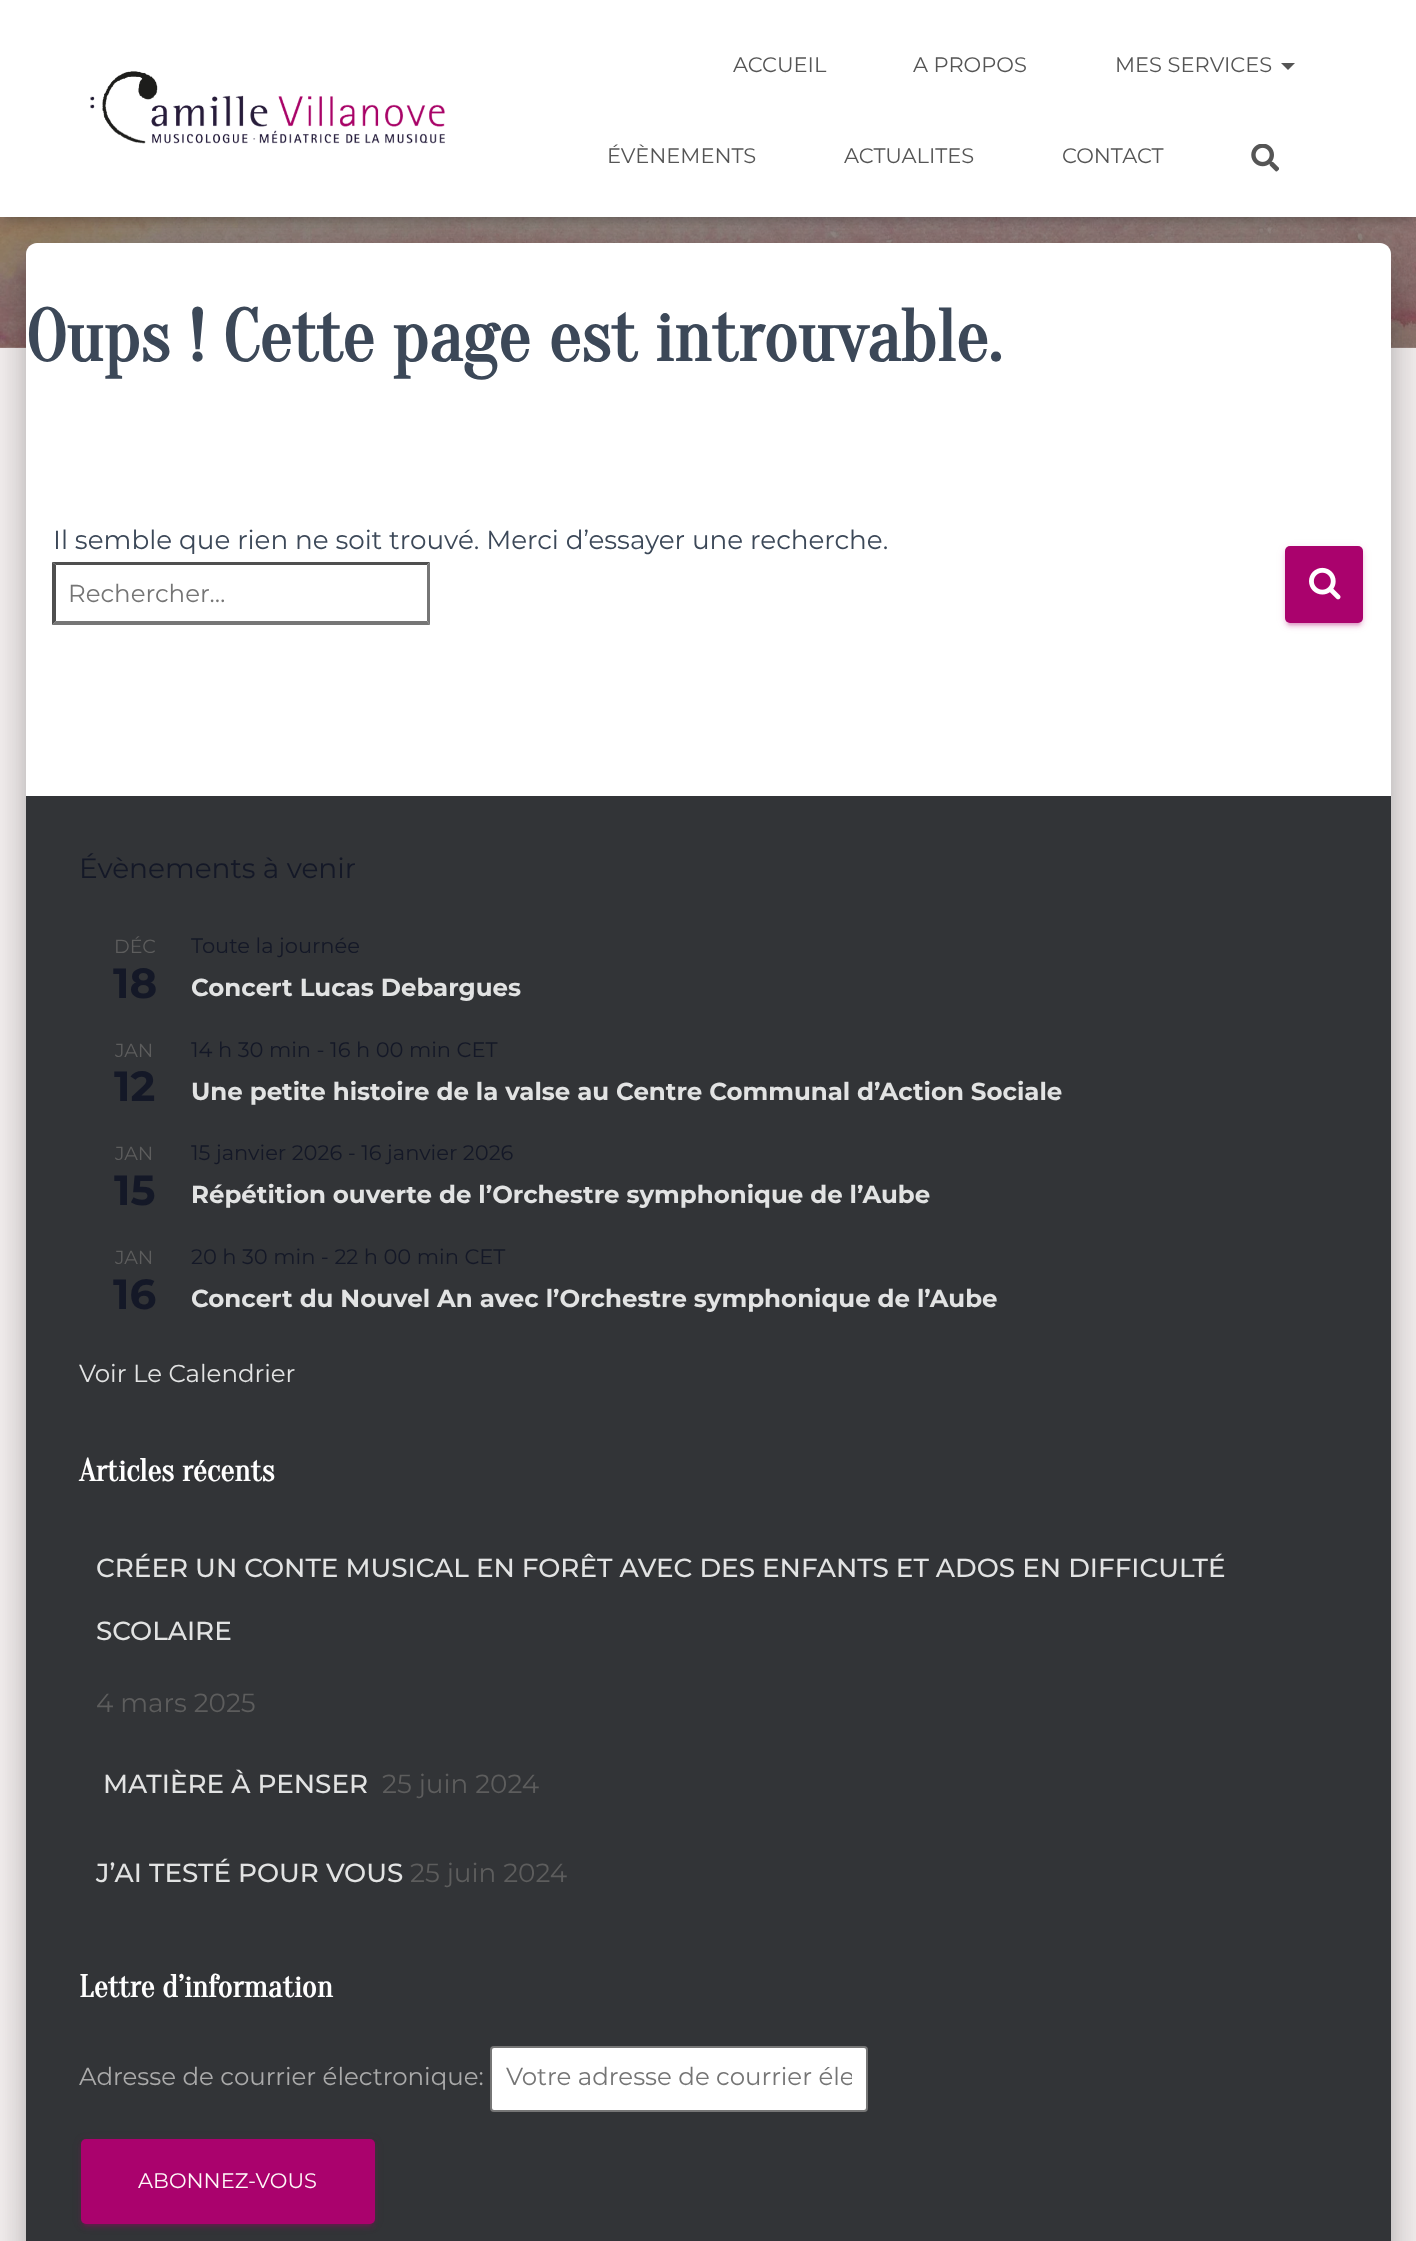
<svg xmlns="http://www.w3.org/2000/svg" width="1416" height="2241">
<defs>
<clipPath id="clip1"><rect x="506" y="2062" width="346" height="31"/></clipPath>
</defs>
<rect width="100%" height="100%" fill="#fbf6f6"/>
<image x="0" y="217" width="1416" height="131" href="media/3.png"/>
<rect x="4" y="11" width="1410" height="210" fill="#0000001a" filter="blur(4.5px)"/>
<rect x="35" y="266" width="1348" height="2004" rx="2" fill="#00000033" filter="blur(9px)"/>
<rect x="18" y="245" width="1382" height="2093" rx="19" fill="#0000001f" filter="blur(26px)"/>
<rect x="23" y="268" width="1372" height="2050" rx="14" fill="#00000024" filter="blur(21px)"/>
<path d="M37 243h1343c6 0 11 5 11 11v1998h-1365v-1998c0-6 5-11 11-11z" fill="#fff"/>
<rect y="2" width="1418" height="217" fill="#0000001f" filter="blur(9px)"/>
<rect x="11" y="12" width="1396" height="196" fill="#0000006b" filter="blur(9px)"/>
<rect width="1416" height="217" fill="#fff"/>
<image x="90" y="71" width="355" height="73" href="media/1.png"/>
<text x="733" y="72" style="font-family:Montserrat;font-size:21px;fill:#555">ACCUEIL</text>
<text x="913" y="72" style="font-family:Montserrat;font-size:21px;fill:#555">A PROPOS</text>
<text x="1115" y="72" style="font-family:Montserrat;font-size:21px;fill:#555">MES SERVICES</text>
<path d="M1281 63h14l-7 7z" fill="#555"/>
<text x="607" y="163" style="font-family:Montserrat;font-size:21px;fill:#555">ÉVÈNEMENTS</text>
<text x="844" y="163" style="font-family:Montserrat;font-size:21px;fill:#555">ACTUALITES</text>
<text x="1062" y="163" style="font-family:Montserrat;font-size:21px;fill:#555">CONTACT</text>
<image x="1251" y="144" width="28" height="28" href="media/2.png"/>
<text x="26" y="361" style="font-family:Oranienbaum;font-size:73.5px;font-weight:bold;fill:#3c4858">Oups ! Cette page est introuvable.</text>
<text x="53" y="549" style="font-family:Montserrat;font-size:26.25px;fill:#3c4858">Il semble que rien ne soit trouvé. Merci d’essayer une recherche.</text>
<path d="M52 562h378l-3 3h-371z" fill="#4f4f4f"/>
<path d="M430 562v63l-3-4v-56z" fill="#767676"/>
<path d="M430 625h-378l4-4h371z" fill="#767676"/>
<path d="M52 625v-63l4 3v56z" fill="#4f4f4f"/>
<text x="68" y="602" style="font-family:Montserrat;font-size:24.5px;fill:#757575">Rechercher…</text>
<rect x="1285" y="548" width="78" height="77" rx="5" fill="#aa026d1f" filter="blur(4.5px)"/>
<rect x="1288" y="555" width="72" height="70" rx="2" fill="#aa026d33" filter="blur(1px)"/>
<rect x="1285" y="550" width="78" height="77" rx="5" fill="#aa026d24" filter="blur(2px)"/>
<rect x="1285" y="546" width="78" height="77" rx="5" fill="#aa026d"/>
<image x="1309" y="567" width="32" height="33" href="media/4.png"/>
<rect x="26" y="796" width="1365" height="1445" fill="#323437"/>
<text x="79" y="878" style="font-family:Montserrat;font-size:28px;fill:#141827">Évènements à venir</text>
<text x="114" y="953" style="font-family:Montserrat;font-size:19px;fill:#5d5d5d">DÉC</text>
<text x="113" y="998" style="font-family:Montserrat;font-size:42px;font-weight:bold;fill:#141827">18</text>
<text x="191" y="953" style="font-family:Montserrat;font-size:21px;fill:#141827">Toute la journée</text>
<text x="191" y="996" style="font-family:Montserrat;font-size:24.5px;font-weight:bold;fill:#e2e3e3">Concert Lucas Debargues</text>
<text x="115" y="1057" style="font-family:Montserrat;font-size:19px;fill:#5d5d5d">JAN</text>
<text x="114" y="1101" style="font-family:Montserrat;font-size:42px;font-weight:bold;fill:#141827">12</text>
<text x="191" y="1057" style="font-family:Montserrat;font-size:21px;fill:#141827">14 h 30 min - 16 h 00 min CET</text>
<text x="191" y="1100" style="font-family:Montserrat;font-size:24.5px;font-weight:bold;fill:#e2e3e3">Une petite histoire de la valse au Centre Communal d’Action Sociale</text>
<text x="115" y="1160" style="font-family:Montserrat;font-size:19px;fill:#5d5d5d">JAN</text>
<text x="114" y="1205" style="font-family:Montserrat;font-size:42px;font-weight:bold;fill:#141827">15</text>
<text x="191" y="1160" style="font-family:Montserrat;font-size:21px;fill:#141827">15 janvier 2026 - 16 janvier 2026</text>
<text x="191" y="1203" style="font-family:Montserrat;font-size:24.5px;font-weight:bold;fill:#e2e3e3">Répétition ouverte de l’Orchestre symphonique de l’Aube</text>
<text x="115" y="1264" style="font-family:Montserrat;font-size:19px;fill:#5d5d5d">JAN</text>
<text x="113" y="1309" style="font-family:Montserrat;font-size:42px;font-weight:bold;fill:#141827">16</text>
<text x="191" y="1264" style="font-family:Montserrat;font-size:21px;fill:#141827">20 h 30 min - 22 h 00 min CET</text>
<text x="191" y="1307" style="font-family:Montserrat;font-size:24.5px;font-weight:bold;fill:#e2e3e3">Concert du Nouvel An avec l’Orchestre symphonique de l’Aube</text>
<text x="79" y="1382" style="font-family:Montserrat;font-size:24.5px;fill:#e2e3e3">Voir Le Calendrier</text>
<text x="79" y="1481" style="font-family:Oranienbaum;font-size:31.5px;font-weight:bold;fill:#fff">Articles récents</text>
<text x="96" y="1577" style="font-family:Montserrat;font-size:26.25px;font-weight:500;fill:#e2e3e3">CRÉER UN CONTE MUSICAL EN FORÊT AVEC DES ENFANTS ET ADOS EN DIFFICULTÉ</text>
<text x="96" y="1640" style="font-family:Montserrat;font-size:26.25px;font-weight:500;fill:#e2e3e3">SCOLAIRE</text>
<text x="96" y="1712" style="font-family:Montserrat;font-size:26.25px;fill:#5d5d5d">4 mars 2025</text>
<text x="103" y="1793" style="font-family:Montserrat;font-size:26.25px;font-weight:500;fill:#e2e3e3">MATIÈRE À PENSER</text>
<text x="382" y="1793" style="font-family:Montserrat;font-size:26.25px;fill:#5d5d5d">25 juin 2024</text>
<text x="96" y="1882" style="font-family:Montserrat;font-size:26.25px;font-weight:500;fill:#e2e3e3">J’AI TESTÉ POUR VOUS</text>
<text x="410" y="1882" style="font-family:Montserrat;font-size:26.25px;fill:#5d5d5d">25 juin 2024</text>
<text x="79" y="1997" style="font-family:Oranienbaum;font-size:31.5px;font-weight:bold;fill:#fff">Lettre d’information</text>
<text x="79" y="2085" style="font-family:Montserrat;font-size:24.5px;fill:#aaa">Adresse de courrier électronique:</text>
<rect x="491" y="2047" width="376" height="64" rx="3" fill="#fff" stroke="#767676" stroke-width="2"/>
<g clip-path="url(#clip1)">
<text x="506" y="2085" style="font-family:Montserrat;font-size:24.5px;fill:#757575">Votre adresse de courrier éle</text>
</g>
<rect x="81" y="2140" width="294" height="86" rx="5" fill="#aa026d1f" filter="blur(4.5px)"/>
<rect x="84" y="2147" width="287" height="79" rx="2" fill="#aa026d33" filter="blur(1px)"/>
<rect x="81" y="2142" width="294" height="86" rx="5" fill="#aa026d24" filter="blur(2px)"/>
<rect x="81" y="2139" width="294" height="85" rx="5" fill="#aa026d"/>
<text x="138" y="2188" style="font-family:Montserrat;font-size:21px;fill:#fff8f8">ABONNEZ-VOUS</text>
</svg>
